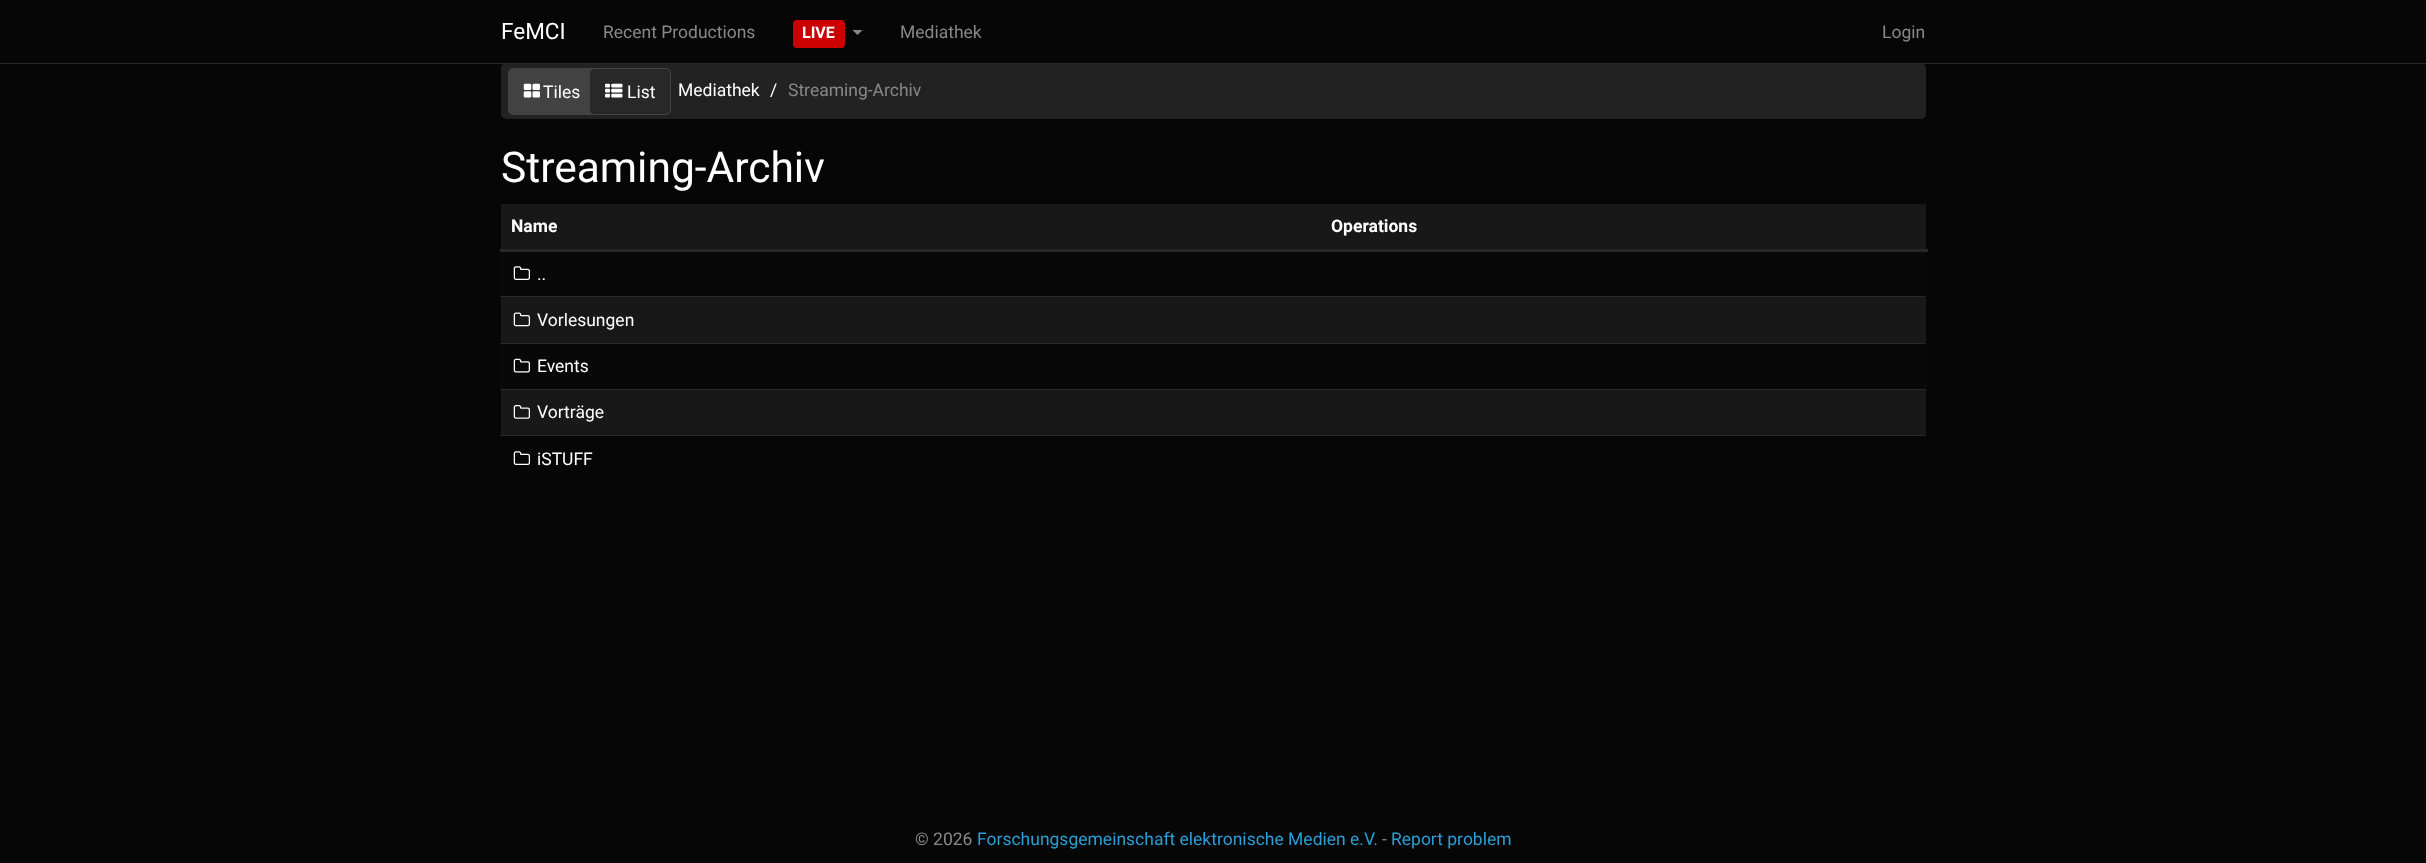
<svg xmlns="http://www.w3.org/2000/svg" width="2426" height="863">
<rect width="100%" height="100%" fill="#060606"/>
<rect x="501" y="63" width="1425" height="56" rx="5" fill="#222"/>
<rect y="63" width="2426" height="1" fill="#282828"/>
<text x="501" y="39" style="font-family:Roboto;font-size:22.5px;fill:#fff">FeMCI</text>
<text x="603" y="38" style="font-family:Roboto;font-size:17.5px;fill:#888">Recent Productions</text>
<rect x="793" y="20" width="52" height="28" rx="4" fill="#c00"/>
<text x="802" y="38" style="font-family:Roboto;font-size:16px;font-weight:bold;fill:#fff">LIVE</text>
<path d="M852.5 30h10l-5 5z" fill="#888"/>
<text x="900" y="38" style="font-family:Roboto;font-size:17.5px;fill:#888">Mediathek</text>
<text x="1882" y="38" style="font-family:Roboto;font-size:17.5px;fill:#888">Login</text>
<rect x="508.5" y="68.5" width="89" height="46" rx="4.5" fill="#424242" stroke="#424242"/>
<image x="523" y="83" width="17" height="15" href="media/1.png"/>
<text x="543" y="98" style="font-family:Roboto;font-size:17.5px;fill:#fff">Tiles</text>
<rect x="589.5" y="68.5" width="81" height="46" rx="4.5" fill="#282828" stroke="#444"/>
<image x="605" y="83" width="18" height="15" href="media/2.png"/>
<text x="627" y="98" style="font-family:Roboto;font-size:17.5px;fill:#fff">List</text>
<text x="678" y="96" style="font-family:Roboto;font-size:17.5px;fill:#fff">Mediathek</text>
<text x="770" y="96" style="font-family:Roboto;font-size:17.5px;fill:#fff">/</text>
<text x="788" y="96" style="font-family:Roboto;font-size:17.5px;fill:#888">Streaming-Archiv</text>
<text x="501" y="182" style="font-family:Roboto;font-size:42.5px;fill:#fff">Streaming-Archiv</text>
<rect x="501" y="204" width="1425" height="231" fill="#181818"/>
<text x="511" y="232" style="font-family:Roboto;font-size:17.5px;font-weight:bold;fill:#fff">Name</text>
<rect x="500" y="249" width="1428" height="3" fill="#282828"/>
<text x="1331" y="232" style="font-family:Roboto;font-size:17.5px;font-weight:bold;fill:#fff">Operations</text>
<rect x="501" y="252" width="1425" height="44" fill="#080808"/>
<image x="513" y="266" width="17" height="14" href="media/3.png"/>
<text x="537" y="280" style="font-family:Roboto;font-size:17.5px;fill:#fff">..</text>
<rect x="500" y="296" width="1426" height="1" fill="#282828"/>
<image x="513" y="312" width="17" height="15" href="media/4.png"/>
<text x="537" y="326" style="font-family:Roboto;font-size:17.5px;fill:#fff">Vorlesungen</text>
<rect x="501" y="344" width="1425" height="45" fill="#080808"/>
<rect x="500" y="343" width="1426" height="1" fill="#282828"/>
<image x="513" y="358" width="17" height="15" href="media/5.png"/>
<text x="537" y="372" style="font-family:Roboto;font-size:17.5px;fill:#fff">Events</text>
<rect x="500" y="389" width="1426" height="1" fill="#282828"/>
<image x="513" y="405" width="17" height="14" href="media/6.png"/>
<text x="537" y="418" style="font-family:Roboto;font-size:17.5px;fill:#fff">Vorträge</text>
<rect x="500" y="435" width="1426" height="1" fill="#282828"/>
<image x="513" y="451" width="17" height="14" href="media/3.png"/>
<text x="537" y="465" style="font-family:Roboto;font-size:17.5px;fill:#fff">iSTUFF</text>
<text x="915" y="845" style="font-family:Roboto;font-size:17.5px;fill:#888">© 2026</text>
<text x="977" y="845" style="font-family:Roboto;font-size:17.5px;fill:#2a9fd6">Forschungsgemeinschaft elektronische Medien e.V.</text>
<text x="1382" y="845" style="font-family:Roboto;font-size:17.5px;fill:#888">-</text>
<text x="1391" y="845" style="font-family:Roboto;font-size:17.5px;fill:#2a9fd6">Report problem</text>
</svg>
